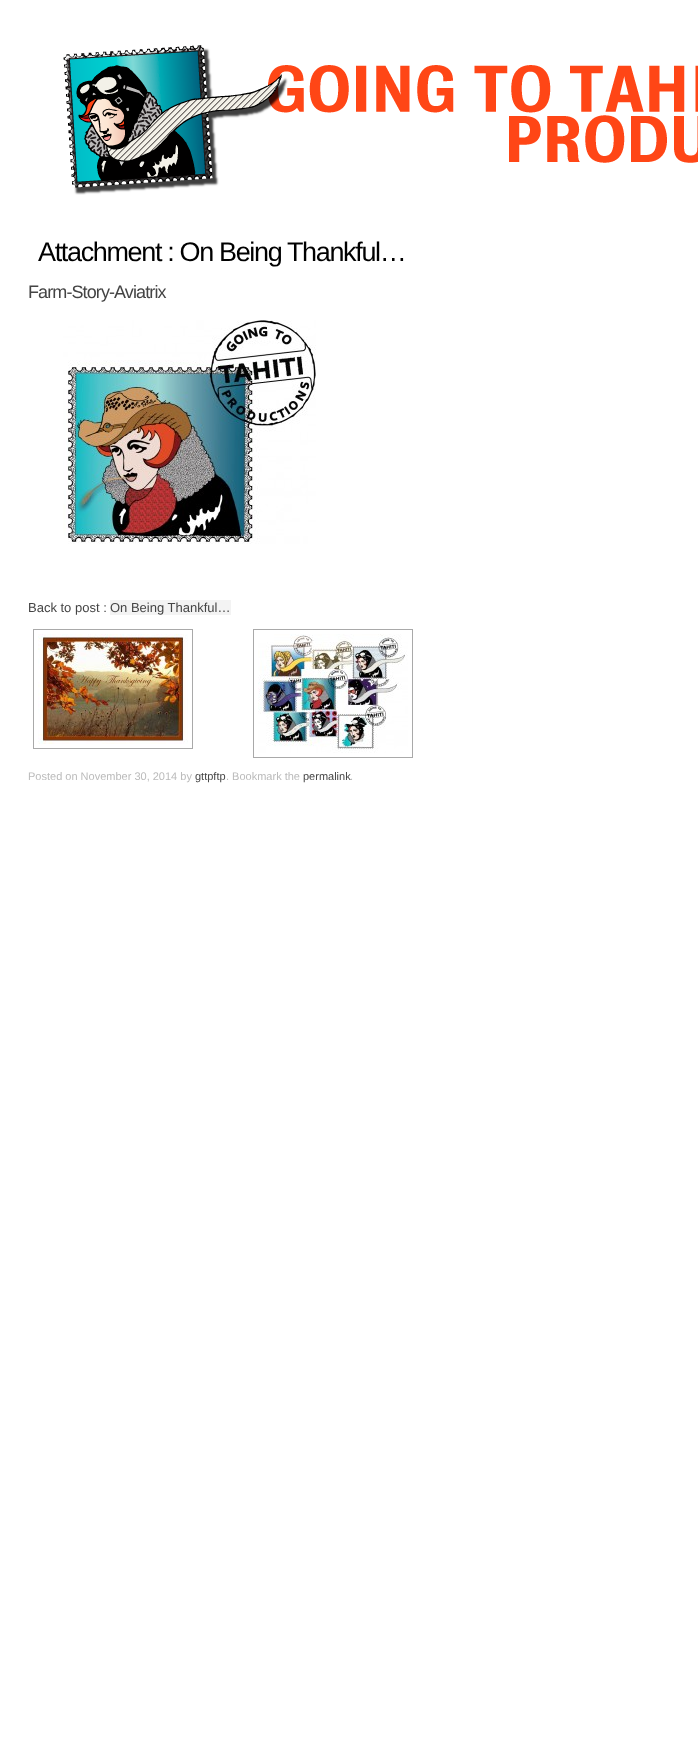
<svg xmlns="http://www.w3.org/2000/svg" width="698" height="1737">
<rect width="100%" height="100%" fill="#fff"/>
<image x="63" y="45" width="635" height="150" href="media/1.png"/>
<text x="38" y="261" style="font-family:Liberation Sans;font-size:27px;letter-spacing:-1.35px;fill:#000">Attachment : On Being Thankful…</text>
<text x="28" y="298" style="font-family:Liberation Sans;font-size:18px;letter-spacing:-0.9px;fill:#444">Farm-Story-Aviatrix</text>
<image x="63" y="320" width="253" height="224" href="media/2.png"/>
<text x="28" y="612" style="font-family:Liberation Sans;font-size:13px;fill:#444">Back to post :</text>
<rect x="110" y="600" width="121" height="15" fill="#f3f3f3"/>
<text x="110" y="612" style="font-family:Liberation Sans;font-size:13px;fill:#444">On Being Thankful…</text>
<rect x="33.5" y="629.5" width="159" height="119" fill="none" stroke="#a9a9a9"/>
<image x="38" y="634" width="150" height="110" href="media/3.png"/>
<rect x="253.5" y="629.5" width="159" height="128" fill="none" stroke="#a9a9a9"/>
<image x="258" y="634" width="150" height="119" href="media/4.png"/>
<text x="28" y="780" style="font-family:Liberation Sans;font-size:11px;fill:#bbb">Posted on November 30, 2014 by</text>
<text x="195" y="780" style="font-family:Liberation Sans;font-size:11px;fill:#444">gttpftp</text>
<text x="226" y="780" style="font-family:Liberation Sans;font-size:11px;fill:#bbb">. Bookmark the</text>
<text x="303" y="780" style="font-family:Liberation Sans;font-size:11px;fill:#444">permalink</text>
<text x="350" y="780" style="font-family:Liberation Sans;font-size:11px;fill:#bbb">.</text>
</svg>
